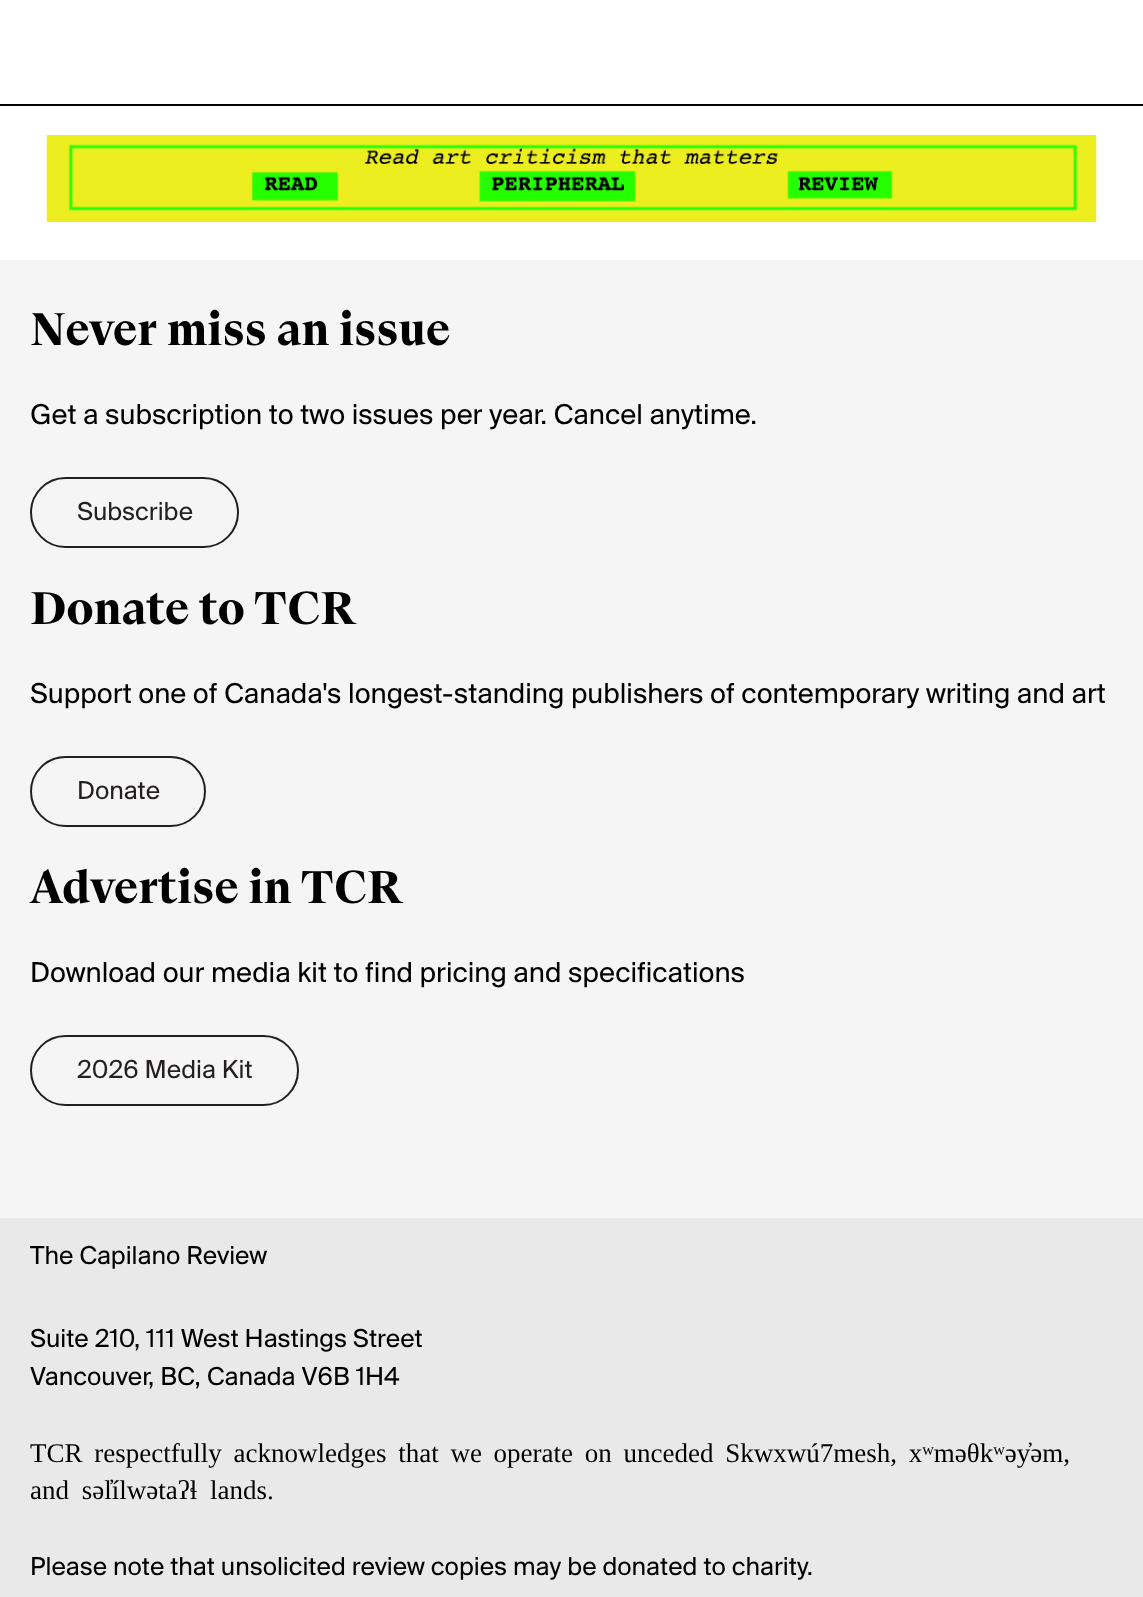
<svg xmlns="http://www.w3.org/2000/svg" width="1143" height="1597">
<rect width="100%" height="100%" fill="#fff"/>
<rect y="104" width="1143" height="2" fill="#000"/>
<image x="46" y="135" width="1051" height="87" href="media/1.png"/>
<rect y="260" width="1143" height="958" fill="#f5f5f5"/>
<text x="30" y="345" style="font-family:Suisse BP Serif;font-size:48px;font-weight:bold;fill:#000">Never miss an issue</text>
<text x="30" y="424" style="font-family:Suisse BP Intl;font-size:30px;fill:#000">Get a subscription to two issues per year. Cancel anytime.</text>
<rect x="31" y="478" width="207" height="69" rx="34.5" fill="none" stroke="#231f20" stroke-width="2"/>
<text x="77" y="520" style="font-family:Suisse BP Intl;font-size:27px;fill:#231f20">Subscribe</text>
<text x="30" y="624" style="font-family:Suisse BP Serif;font-size:48px;font-weight:bold;fill:#000">Donate to TCR</text>
<text x="30" y="703" style="font-family:Suisse BP Intl;font-size:30px;fill:#000">Support one of Canada's longest-standing publishers of contemporary writing and art</text>
<rect x="31" y="757" width="174" height="69" rx="34.5" fill="none" stroke="#231f20" stroke-width="2"/>
<text x="77" y="799" style="font-family:Suisse BP Intl;font-size:27px;fill:#231f20">Donate</text>
<text x="30" y="903" style="font-family:Suisse BP Serif;font-size:48px;font-weight:bold;fill:#000">Advertise in TCR</text>
<text x="30" y="982" style="font-family:Suisse BP Intl;font-size:30px;fill:#000">Download our media kit to find pricing and specifications</text>
<rect x="31" y="1036" width="267" height="69" rx="34.5" fill="none" stroke="#231f20" stroke-width="2"/>
<text x="77" y="1078" style="font-family:Suisse BP Intl;font-size:27px;fill:#231f20">2026 Media Kit</text>
<rect y="1218" width="1143" height="379" fill="#e9e9e9"/>
<text x="30" y="1264" style="font-family:Suisse BP Intl;font-size:27px;fill:#000">The Capilano Review</text>
<text x="30" y="1347" style="font-family:Suisse BP Intl;font-size:27px;fill:#000">Suite 210, 111 West Hastings Street</text>
<text x="30" y="1385" style="font-family:Suisse BP Intl;font-size:27px;fill:#000">Vancouver, BC, Canada V6B 1H4</text>
<text x="30" y="1462" word-spacing="5" style="font-family:Liberation Serif;font-size:27px;fill:#000">TCR respectfully acknowledges that we operate on unceded Skwxwú7mesh, xʷməθkʷəy̓əm,</text>
<text x="30" y="1499" word-spacing="6" style="font-family:Liberation Serif;font-size:27px;fill:#000">and səl̓ílwətaʔɬ lands.</text>
<text x="30" y="1575" style="font-family:Suisse BP Intl;font-size:27px;fill:#000">Please note that unsolicited review copies may be donated to charity.</text>
</svg>
